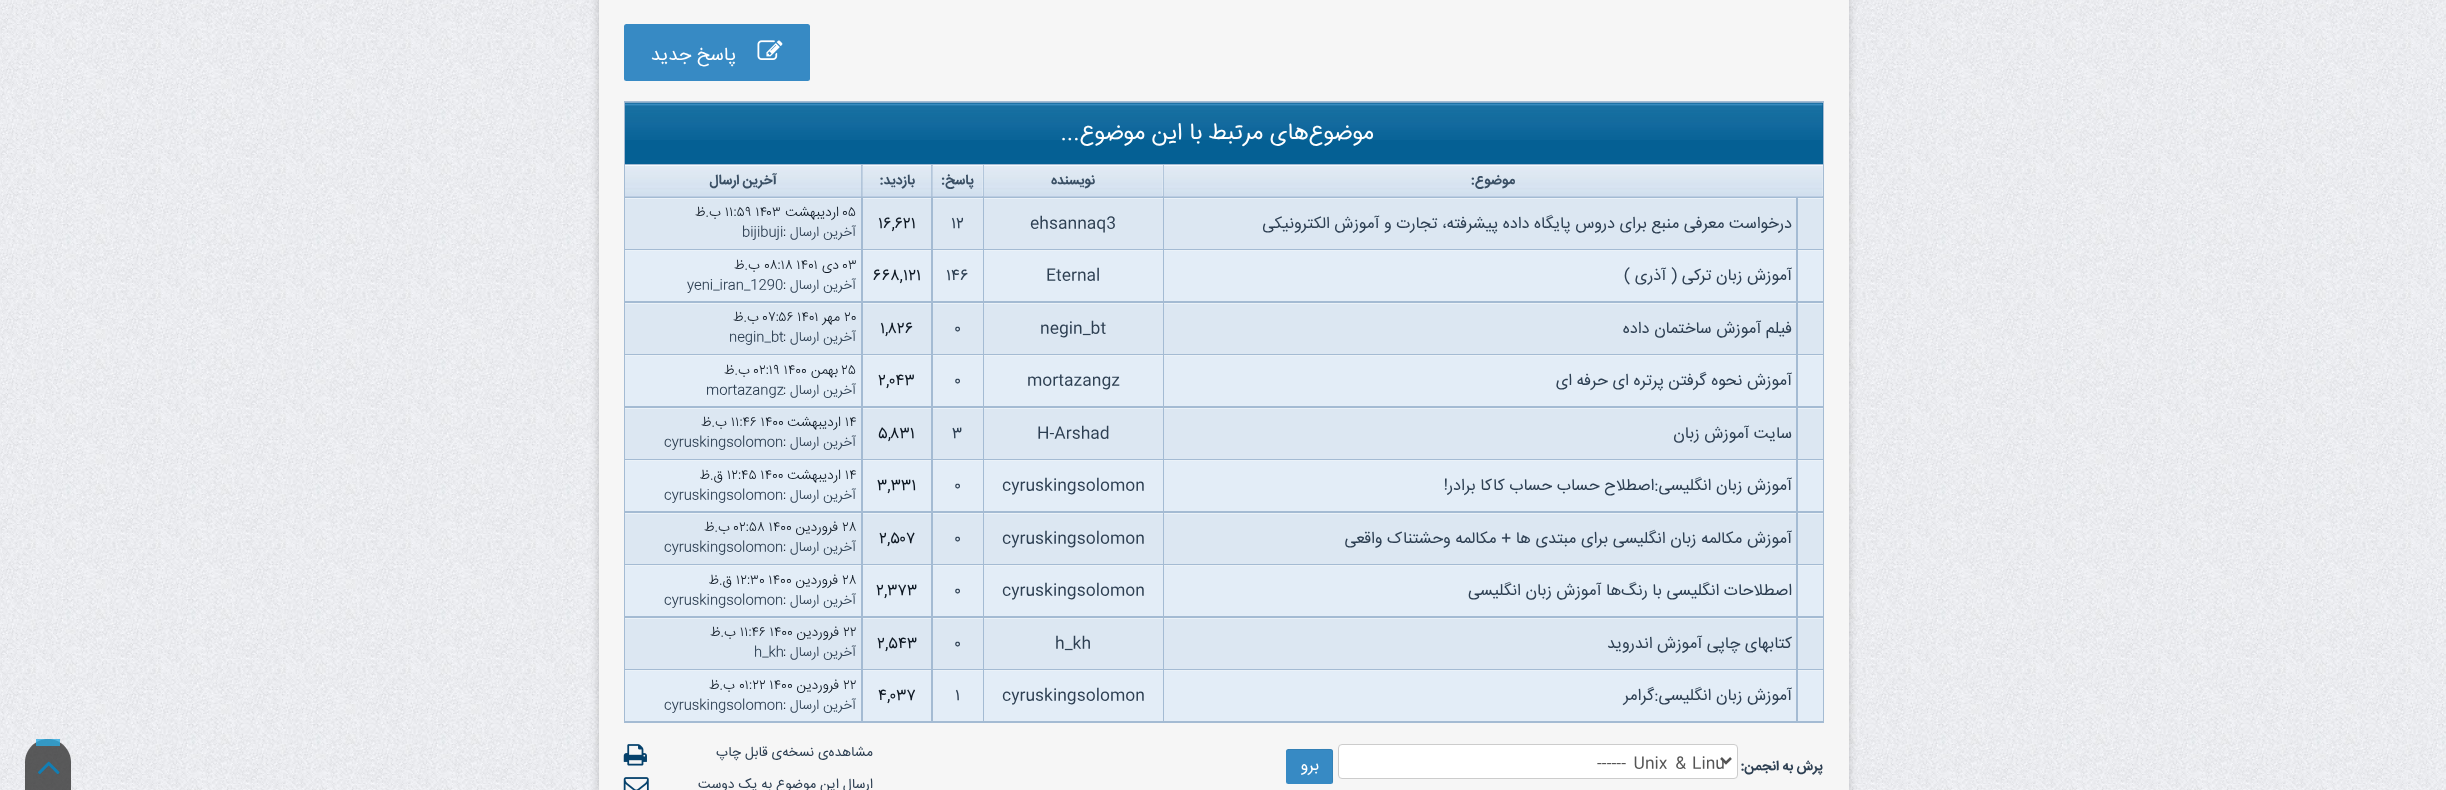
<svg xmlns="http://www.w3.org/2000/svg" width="2446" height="790">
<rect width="100%" height="100%" fill="#fff"/>
<image x="0" y="0" width="2446" height="790" href="media/1.png"/>
<rect x="599" y="-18" width="1250" height="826" rx="6" fill="#00000033" filter="blur(4px)"/>
<rect x="599" width="1250" height="790" fill="#f6f6f6"/>
<rect x="624" y="24" width="186" height="57" rx="2.5" fill="#378ac4"/>
<image x="757" y="40" width="26" height="20" href="media/2.png"/>
<text x="736" y="60" style="font-family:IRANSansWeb;font-size:18.75px;direction:rtl;fill:#fff">پاسخ جدید</text>
<rect x="624" y="101" width="1200" height="622" fill="#a4bbd3"/>
<rect x="625" y="103" width="1198" height="61" fill="#056094"/>
<image x="625" y="102" width="1198" height="38" href="media/3.png"/>
<text x="1374" y="139" style="font-family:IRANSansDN;font-size:22.5px;direction:rtl;fill:#fff">موضوع‌های مرتبط با این موضوع...</text>
<rect x="1822" y="166" width="1" height="30" fill="#e5edf5"/>
<image x="1163" y="165" width="660" height="32" href="media/4.png"/>
<rect x="1164" y="165" width="659" height="1" fill="#f6fafd"/>
<text x="1515" y="184" style="font-family:IRANSansWeb;font-size:13.75px;font-weight:bold;direction:rtl;fill:#3a4f64">موضوع:</text>
<rect x="1162" y="166" width="1" height="30" fill="#e5edf5"/>
<image x="983" y="165" width="180" height="32" href="media/5.png"/>
<rect x="984" y="165" width="179" height="1" fill="#f6fafd"/>
<text x="1095" y="184" style="font-family:IRANSansWeb;font-size:13.75px;font-weight:bold;direction:rtl;fill:#3a4f64">نویسنده</text>
<rect x="982" y="166" width="1" height="30" fill="#e5edf5"/>
<image x="932" y="165" width="51" height="32" href="media/6.png"/>
<rect x="933" y="165" width="50" height="1" fill="#f6fafd"/>
<text x="974" y="184" style="font-family:IRANSansWeb;font-size:13.75px;font-weight:bold;direction:rtl;fill:#3a4f64">پاسخ:</text>
<image x="862" y="165" width="70" height="32" href="media/7.png"/>
<rect x="863" y="165" width="68" height="1" fill="#f6fafd"/>
<text x="915" y="184" style="font-family:IRANSansWeb;font-size:13.75px;font-weight:bold;direction:rtl;fill:#3a4f64">بازدید:</text>
<image x="625" y="165" width="237" height="32" href="media/8.png"/>
<rect x="625" y="165" width="236" height="1" fill="#f6fafd"/>
<text x="777" y="184" style="font-family:IRANSansWeb;font-size:13.75px;font-weight:bold;direction:rtl;fill:#3a4f64">آخرین ارسال</text>
<rect x="1798" y="199" width="25" height="50" fill="#dce7f2"/>
<rect x="1798" y="198" width="25" height="1" fill="#ebf2f8"/>
<rect x="1164" y="199" width="632" height="50" fill="#dce7f2"/>
<rect x="1164" y="198" width="632" height="1" fill="#ebf2f8"/>
<text x="1792" y="228" style="font-family:IRANSansWeb;font-size:16.25px;direction:rtl;fill:#2d3f52">درخواست معرفی منبع برای دروس پایگاه داده پیشرفته، تجارت و آموزش الکترونیکی</text>
<rect x="984" y="199" width="179" height="50" fill="#dce7f2"/>
<rect x="984" y="198" width="179" height="1" fill="#ebf2f8"/>
<text x="1030" y="228" style="font-family:IRANSansWeb;font-size:16.25px;fill:#2d3f52">ehsannaq3</text>
<rect x="933" y="199" width="50" height="50" fill="#dce7f2"/>
<rect x="933" y="198" width="50" height="1" fill="#ebf2f8"/>
<text x="951" y="228" style="font-family:IRANSansWeb;font-size:16.25px;fill:#2d3f52">۱۲</text>
<rect x="863" y="199" width="68" height="50" fill="#dce7f2"/>
<rect x="863" y="198" width="68" height="1" fill="#ebf2f8"/>
<text x="878" y="228" style="font-family:IRANSansWeb;font-size:16.25px;fill:#0c1621">۱۶,۶۲۱</text>
<rect x="625" y="199" width="236" height="50" fill="#dce7f2"/>
<rect x="625" y="198" width="236" height="1" fill="#ebf2f8"/>
<text x="842" y="216" style="font-family:IRANSansWeb;font-size:13.75px;font-weight:300;fill:#0c1621">۰۵</text>
<text x="839" y="216" style="font-family:IRANSansWeb;font-size:13.75px;font-weight:300;direction:rtl;fill:#0c1621">اردیبهشت</text>
<text x="725" y="216" style="font-family:IRANSansWeb;font-size:13.75px;font-weight:300;fill:#0c1621">۱۱:۵۹ ۱۴۰۳</text>
<text x="721" y="216" style="font-family:IRANSansWeb;font-size:13.75px;font-weight:300;direction:rtl;fill:#0c1621">ب.ظ</text>
<text x="856" y="236" style="font-family:IRANSansWeb;font-size:13.75px;font-weight:300;direction:rtl;fill:#2d3f52">آخرین ارسال</text>
<text x="783" y="236" style="font-family:IRANSansWeb;font-size:13.75px;font-weight:300;fill:#0c1621">:</text>
<text x="742" y="236" style="font-family:IRANSansWeb;font-size:13.75px;font-weight:300;fill:#2d3f52">bijibuji</text>
<rect x="1798" y="251" width="25" height="50" fill="#e3edf7"/>
<rect x="1798" y="250" width="25" height="1" fill="#ebf2f8"/>
<rect x="1164" y="251" width="632" height="50" fill="#e3edf7"/>
<rect x="1164" y="250" width="632" height="1" fill="#ebf2f8"/>
<text x="1792" y="280" style="font-family:IRANSansWeb;font-size:16.25px;direction:rtl;fill:#2d3f52">آموزش زبان ترکی ( آذری )</text>
<rect x="984" y="251" width="179" height="50" fill="#e3edf7"/>
<rect x="984" y="250" width="179" height="1" fill="#ebf2f8"/>
<text x="1046" y="280" style="font-family:IRANSansWeb;font-size:16.25px;fill:#2d3f52">Eternal</text>
<rect x="933" y="251" width="50" height="50" fill="#e3edf7"/>
<rect x="933" y="250" width="50" height="1" fill="#ebf2f8"/>
<text x="946" y="280" style="font-family:IRANSansWeb;font-size:16.25px;fill:#2d3f52">۱۴۶</text>
<rect x="863" y="251" width="68" height="50" fill="#e3edf7"/>
<rect x="863" y="250" width="68" height="1" fill="#ebf2f8"/>
<text x="873" y="280" style="font-family:IRANSansWeb;font-size:16.25px;fill:#0c1621">۶۶۸,۱۲۱</text>
<rect x="625" y="251" width="236" height="50" fill="#e3edf7"/>
<rect x="625" y="250" width="236" height="1" fill="#ebf2f8"/>
<text x="843" y="269" style="font-family:IRANSansWeb;font-size:13.75px;font-weight:300;fill:#0c1621">۰۳</text>
<text x="839" y="269" style="font-family:IRANSansWeb;font-size:13.75px;font-weight:300;direction:rtl;fill:#0c1621">دى</text>
<text x="764" y="269" style="font-family:IRANSansWeb;font-size:13.75px;font-weight:300;fill:#0c1621">۰۸:۱۸ ۱۴۰۱</text>
<text x="760" y="269" style="font-family:IRANSansWeb;font-size:13.75px;font-weight:300;direction:rtl;fill:#0c1621">ب.ظ</text>
<text x="856" y="289" style="font-family:IRANSansWeb;font-size:13.75px;font-weight:300;direction:rtl;fill:#2d3f52">آخرین ارسال</text>
<text x="783" y="289" style="font-family:IRANSansWeb;font-size:13.75px;font-weight:300;fill:#0c1621">:</text>
<text x="687" y="289" style="font-family:IRANSansWeb;font-size:13.75px;font-weight:300;fill:#2d3f52">yeni_iran_1290</text>
<rect x="1798" y="304" width="25" height="50" fill="#dce7f2"/>
<rect x="1798" y="303" width="25" height="1" fill="#ebf2f8"/>
<rect x="1164" y="304" width="632" height="50" fill="#dce7f2"/>
<rect x="1164" y="303" width="632" height="1" fill="#ebf2f8"/>
<text x="1792" y="333" style="font-family:IRANSansWeb;font-size:16.25px;direction:rtl;fill:#2d3f52">فیلم آموزش ساختمان داده</text>
<rect x="984" y="304" width="179" height="50" fill="#dce7f2"/>
<rect x="984" y="303" width="179" height="1" fill="#ebf2f8"/>
<text x="1040" y="333" style="font-family:IRANSansWeb;font-size:16.25px;fill:#2d3f52">negin_bt</text>
<rect x="933" y="304" width="50" height="50" fill="#dce7f2"/>
<rect x="933" y="303" width="50" height="1" fill="#ebf2f8"/>
<text x="954" y="333" style="font-family:IRANSansWeb;font-size:16.25px;fill:#2d3f52">۰</text>
<rect x="863" y="304" width="68" height="50" fill="#dce7f2"/>
<rect x="863" y="303" width="68" height="1" fill="#ebf2f8"/>
<text x="880" y="333" style="font-family:IRANSansWeb;font-size:16.25px;fill:#0c1621">۱,۸۲۶</text>
<rect x="625" y="304" width="236" height="50" fill="#dce7f2"/>
<rect x="625" y="303" width="236" height="1" fill="#ebf2f8"/>
<text x="844" y="321" style="font-family:IRANSansWeb;font-size:13.75px;font-weight:300;fill:#0c1621">۲۰</text>
<text x="840" y="321" style="font-family:IRANSansWeb;font-size:13.75px;font-weight:300;direction:rtl;fill:#0c1621">مهر</text>
<text x="763" y="321" style="font-family:IRANSansWeb;font-size:13.75px;font-weight:300;fill:#0c1621">۰۷:۵۶ ۱۴۰۱</text>
<text x="759" y="321" style="font-family:IRANSansWeb;font-size:13.75px;font-weight:300;direction:rtl;fill:#0c1621">ب.ظ</text>
<text x="856" y="341" style="font-family:IRANSansWeb;font-size:13.75px;font-weight:300;direction:rtl;fill:#2d3f52">آخرین ارسال</text>
<text x="783" y="341" style="font-family:IRANSansWeb;font-size:13.75px;font-weight:300;fill:#0c1621">:</text>
<text x="729" y="341" style="font-family:IRANSansWeb;font-size:13.75px;font-weight:300;fill:#2d3f52">negin_bt</text>
<rect x="1798" y="356" width="25" height="50" fill="#e3edf7"/>
<rect x="1798" y="355" width="25" height="1" fill="#ebf2f8"/>
<rect x="1164" y="356" width="632" height="50" fill="#e3edf7"/>
<rect x="1164" y="355" width="632" height="1" fill="#ebf2f8"/>
<text x="1792" y="385" style="font-family:IRANSansWeb;font-size:16.25px;direction:rtl;fill:#2d3f52">آموزش نحوه گرفتن پرتره ای حرفه ای</text>
<rect x="984" y="356" width="179" height="50" fill="#e3edf7"/>
<rect x="984" y="355" width="179" height="1" fill="#ebf2f8"/>
<text x="1027" y="385" style="font-family:IRANSansWeb;font-size:16.25px;fill:#2d3f52">mortazangz</text>
<rect x="933" y="356" width="50" height="50" fill="#e3edf7"/>
<rect x="933" y="355" width="50" height="1" fill="#ebf2f8"/>
<text x="954" y="385" style="font-family:IRANSansWeb;font-size:16.25px;fill:#2d3f52">۰</text>
<rect x="863" y="356" width="68" height="50" fill="#e3edf7"/>
<rect x="863" y="355" width="68" height="1" fill="#ebf2f8"/>
<text x="878" y="385" style="font-family:IRANSansWeb;font-size:16.25px;fill:#0c1621">۲,۰۴۳</text>
<rect x="625" y="356" width="236" height="50" fill="#e3edf7"/>
<rect x="625" y="355" width="236" height="1" fill="#ebf2f8"/>
<text x="841" y="374" style="font-family:IRANSansWeb;font-size:13.75px;font-weight:300;fill:#0c1621">۲۵</text>
<text x="838" y="374" style="font-family:IRANSansWeb;font-size:13.75px;font-weight:300;direction:rtl;fill:#0c1621">بهمن</text>
<text x="754" y="374" style="font-family:IRANSansWeb;font-size:13.75px;font-weight:300;fill:#0c1621">۰۲:۱۹ ۱۴۰۰</text>
<text x="750" y="374" style="font-family:IRANSansWeb;font-size:13.75px;font-weight:300;direction:rtl;fill:#0c1621">ب.ظ</text>
<text x="856" y="394" style="font-family:IRANSansWeb;font-size:13.75px;font-weight:300;direction:rtl;fill:#2d3f52">آخرین ارسال</text>
<text x="783" y="394" style="font-family:IRANSansWeb;font-size:13.75px;font-weight:300;fill:#0c1621">:</text>
<text x="706" y="394" style="font-family:IRANSansWeb;font-size:13.75px;font-weight:300;fill:#2d3f52">mortazangz</text>
<rect x="1798" y="409" width="25" height="50" fill="#dce7f2"/>
<rect x="1798" y="408" width="25" height="1" fill="#ebf2f8"/>
<rect x="1164" y="409" width="632" height="50" fill="#dce7f2"/>
<rect x="1164" y="408" width="632" height="1" fill="#ebf2f8"/>
<text x="1792" y="438" style="font-family:IRANSansWeb;font-size:16.25px;direction:rtl;fill:#2d3f52">سایت آموزش زبان</text>
<rect x="984" y="409" width="179" height="50" fill="#dce7f2"/>
<rect x="984" y="408" width="179" height="1" fill="#ebf2f8"/>
<text x="1037" y="438" style="font-family:IRANSansWeb;font-size:16.25px;fill:#2d3f52">H-Arshad</text>
<rect x="933" y="409" width="50" height="50" fill="#dce7f2"/>
<rect x="933" y="408" width="50" height="1" fill="#ebf2f8"/>
<text x="952" y="438" style="font-family:IRANSansWeb;font-size:16.25px;fill:#2d3f52">۳</text>
<rect x="863" y="409" width="68" height="50" fill="#dce7f2"/>
<rect x="863" y="408" width="68" height="1" fill="#ebf2f8"/>
<text x="878" y="438" style="font-family:IRANSansWeb;font-size:16.25px;fill:#0c1621">۵,۸۳۱</text>
<rect x="625" y="409" width="236" height="50" fill="#dce7f2"/>
<rect x="625" y="408" width="236" height="1" fill="#ebf2f8"/>
<text x="845" y="426" style="font-family:IRANSansWeb;font-size:13.75px;font-weight:300;fill:#0c1621">۱۴</text>
<text x="841" y="426" style="font-family:IRANSansWeb;font-size:13.75px;font-weight:300;direction:rtl;fill:#0c1621">اردیبهشت</text>
<text x="731" y="426" style="font-family:IRANSansWeb;font-size:13.75px;font-weight:300;fill:#0c1621">۱۱:۴۶ ۱۴۰۰</text>
<text x="727" y="426" style="font-family:IRANSansWeb;font-size:13.75px;font-weight:300;direction:rtl;fill:#0c1621">ب.ظ</text>
<text x="856" y="446" style="font-family:IRANSansWeb;font-size:13.75px;font-weight:300;direction:rtl;fill:#2d3f52">آخرین ارسال</text>
<text x="783" y="446" style="font-family:IRANSansWeb;font-size:13.75px;font-weight:300;fill:#0c1621">:</text>
<text x="664" y="446" style="font-family:IRANSansWeb;font-size:13.75px;font-weight:300;fill:#2d3f52">cyruskingsolomon</text>
<rect x="1798" y="461" width="25" height="50" fill="#e3edf7"/>
<rect x="1798" y="460" width="25" height="1" fill="#ebf2f8"/>
<rect x="1164" y="461" width="632" height="50" fill="#e3edf7"/>
<rect x="1164" y="460" width="632" height="1" fill="#ebf2f8"/>
<text x="1792" y="490" style="font-family:IRANSansWeb;font-size:16.25px;direction:rtl;fill:#2d3f52">آموزش زبان انگلیسی:اصطلاح حساب حساب کاکا برادر!</text>
<rect x="984" y="461" width="179" height="50" fill="#e3edf7"/>
<rect x="984" y="460" width="179" height="1" fill="#ebf2f8"/>
<text x="1002" y="490" style="font-family:IRANSansWeb;font-size:16.25px;fill:#2d3f52">cyruskingsolomon</text>
<rect x="933" y="461" width="50" height="50" fill="#e3edf7"/>
<rect x="933" y="460" width="50" height="1" fill="#ebf2f8"/>
<text x="954" y="490" style="font-family:IRANSansWeb;font-size:16.25px;fill:#2d3f52">۰</text>
<rect x="863" y="461" width="68" height="50" fill="#e3edf7"/>
<rect x="863" y="460" width="68" height="1" fill="#ebf2f8"/>
<text x="877" y="490" style="font-family:IRANSansWeb;font-size:16.25px;fill:#0c1621">۳,۳۳۱</text>
<rect x="625" y="461" width="236" height="50" fill="#e3edf7"/>
<rect x="625" y="460" width="236" height="1" fill="#ebf2f8"/>
<text x="845" y="479" style="font-family:IRANSansWeb;font-size:13.75px;font-weight:300;fill:#0c1621">۱۴</text>
<text x="841" y="479" style="font-family:IRANSansWeb;font-size:13.75px;font-weight:300;direction:rtl;fill:#0c1621">اردیبهشت</text>
<text x="727" y="479" style="font-family:IRANSansWeb;font-size:13.75px;font-weight:300;fill:#0c1621">۱۲:۴۵ ۱۴۰۰</text>
<text x="723" y="479" style="font-family:IRANSansWeb;font-size:13.75px;font-weight:300;direction:rtl;fill:#0c1621">ق.ظ</text>
<text x="856" y="499" style="font-family:IRANSansWeb;font-size:13.75px;font-weight:300;direction:rtl;fill:#2d3f52">آخرین ارسال</text>
<text x="783" y="499" style="font-family:IRANSansWeb;font-size:13.75px;font-weight:300;fill:#0c1621">:</text>
<text x="664" y="499" style="font-family:IRANSansWeb;font-size:13.75px;font-weight:300;fill:#2d3f52">cyruskingsolomon</text>
<rect x="1798" y="514" width="25" height="50" fill="#dce7f2"/>
<rect x="1798" y="513" width="25" height="1" fill="#ebf2f8"/>
<rect x="1164" y="514" width="632" height="50" fill="#dce7f2"/>
<rect x="1164" y="513" width="632" height="1" fill="#ebf2f8"/>
<text x="1792" y="543" style="font-family:IRANSansWeb;font-size:16.25px;direction:rtl;fill:#2d3f52">آموزش مکالمه زبان انگلیسی برای مبتدی ها + مکالمه وحشتناک واقعی</text>
<rect x="984" y="514" width="179" height="50" fill="#dce7f2"/>
<rect x="984" y="513" width="179" height="1" fill="#ebf2f8"/>
<text x="1002" y="543" style="font-family:IRANSansWeb;font-size:16.25px;fill:#2d3f52">cyruskingsolomon</text>
<rect x="933" y="514" width="50" height="50" fill="#dce7f2"/>
<rect x="933" y="513" width="50" height="1" fill="#ebf2f8"/>
<text x="954" y="543" style="font-family:IRANSansWeb;font-size:16.25px;fill:#2d3f52">۰</text>
<rect x="863" y="514" width="68" height="50" fill="#dce7f2"/>
<rect x="863" y="513" width="68" height="1" fill="#ebf2f8"/>
<text x="879" y="543" style="font-family:IRANSansWeb;font-size:16.25px;fill:#0c1621">۲,۵۰۷</text>
<rect x="625" y="514" width="236" height="50" fill="#dce7f2"/>
<rect x="625" y="513" width="236" height="1" fill="#ebf2f8"/>
<text x="842" y="531" style="font-family:IRANSansWeb;font-size:13.75px;font-weight:300;fill:#0c1621">۲۸</text>
<text x="838" y="531" style="font-family:IRANSansWeb;font-size:13.75px;font-weight:300;direction:rtl;fill:#0c1621">فروردین</text>
<text x="734" y="531" style="font-family:IRANSansWeb;font-size:13.75px;font-weight:300;fill:#0c1621">۰۲:۵۸ ۱۴۰۰</text>
<text x="730" y="531" style="font-family:IRANSansWeb;font-size:13.75px;font-weight:300;direction:rtl;fill:#0c1621">ب.ظ</text>
<text x="856" y="551" style="font-family:IRANSansWeb;font-size:13.75px;font-weight:300;direction:rtl;fill:#2d3f52">آخرین ارسال</text>
<text x="783" y="551" style="font-family:IRANSansWeb;font-size:13.75px;font-weight:300;fill:#0c1621">:</text>
<text x="664" y="551" style="font-family:IRANSansWeb;font-size:13.75px;font-weight:300;fill:#2d3f52">cyruskingsolomon</text>
<rect x="1798" y="566" width="25" height="50" fill="#e3edf7"/>
<rect x="1798" y="565" width="25" height="1" fill="#ebf2f8"/>
<rect x="1164" y="566" width="632" height="50" fill="#e3edf7"/>
<rect x="1164" y="565" width="632" height="1" fill="#ebf2f8"/>
<text x="1792" y="595" style="font-family:IRANSansWeb;font-size:16.25px;direction:rtl;fill:#2d3f52">اصطلاحات انگلیسی با رنگ‌ها آموزش زبان انگلیسی</text>
<rect x="984" y="566" width="179" height="50" fill="#e3edf7"/>
<rect x="984" y="565" width="179" height="1" fill="#ebf2f8"/>
<text x="1002" y="595" style="font-family:IRANSansWeb;font-size:16.25px;fill:#2d3f52">cyruskingsolomon</text>
<rect x="933" y="566" width="50" height="50" fill="#e3edf7"/>
<rect x="933" y="565" width="50" height="1" fill="#ebf2f8"/>
<text x="954" y="595" style="font-family:IRANSansWeb;font-size:16.25px;fill:#2d3f52">۰</text>
<rect x="863" y="566" width="68" height="50" fill="#e3edf7"/>
<rect x="863" y="565" width="68" height="1" fill="#ebf2f8"/>
<text x="876" y="595" style="font-family:IRANSansWeb;font-size:16.25px;fill:#0c1621">۲,۳۷۳</text>
<rect x="625" y="566" width="236" height="50" fill="#e3edf7"/>
<rect x="625" y="565" width="236" height="1" fill="#ebf2f8"/>
<text x="842" y="584" style="font-family:IRANSansWeb;font-size:13.75px;font-weight:300;fill:#0c1621">۲۸</text>
<text x="838" y="584" style="font-family:IRANSansWeb;font-size:13.75px;font-weight:300;direction:rtl;fill:#0c1621">فروردین</text>
<text x="736" y="584" style="font-family:IRANSansWeb;font-size:13.75px;font-weight:300;fill:#0c1621">۱۲:۳۰ ۱۴۰۰</text>
<text x="732" y="584" style="font-family:IRANSansWeb;font-size:13.75px;font-weight:300;direction:rtl;fill:#0c1621">ق.ظ</text>
<text x="856" y="604" style="font-family:IRANSansWeb;font-size:13.75px;font-weight:300;direction:rtl;fill:#2d3f52">آخرین ارسال</text>
<text x="783" y="604" style="font-family:IRANSansWeb;font-size:13.75px;font-weight:300;fill:#0c1621">:</text>
<text x="664" y="604" style="font-family:IRANSansWeb;font-size:13.75px;font-weight:300;fill:#2d3f52">cyruskingsolomon</text>
<rect x="1798" y="619" width="25" height="50" fill="#dce7f2"/>
<rect x="1798" y="618" width="25" height="1" fill="#ebf2f8"/>
<rect x="1164" y="619" width="632" height="50" fill="#dce7f2"/>
<rect x="1164" y="618" width="632" height="1" fill="#ebf2f8"/>
<text x="1792" y="648" style="font-family:IRANSansWeb;font-size:16.25px;direction:rtl;fill:#2d3f52">کتابهای چاپی آموزش اندروید</text>
<rect x="984" y="619" width="179" height="50" fill="#dce7f2"/>
<rect x="984" y="618" width="179" height="1" fill="#ebf2f8"/>
<text x="1055" y="648" style="font-family:IRANSansWeb;font-size:16.25px;fill:#2d3f52">h_kh</text>
<rect x="933" y="619" width="50" height="50" fill="#dce7f2"/>
<rect x="933" y="618" width="50" height="1" fill="#ebf2f8"/>
<text x="954" y="648" style="font-family:IRANSansWeb;font-size:16.25px;fill:#2d3f52">۰</text>
<rect x="863" y="619" width="68" height="50" fill="#dce7f2"/>
<rect x="863" y="618" width="68" height="1" fill="#ebf2f8"/>
<text x="877" y="648" style="font-family:IRANSansWeb;font-size:16.25px;fill:#0c1621">۲,۵۴۳</text>
<rect x="625" y="619" width="236" height="50" fill="#dce7f2"/>
<rect x="625" y="618" width="236" height="1" fill="#ebf2f8"/>
<text x="843" y="636" style="font-family:IRANSansWeb;font-size:13.75px;font-weight:300;fill:#0c1621">۲۲</text>
<text x="839" y="636" style="font-family:IRANSansWeb;font-size:13.75px;font-weight:300;direction:rtl;fill:#0c1621">فروردین</text>
<text x="740" y="636" style="font-family:IRANSansWeb;font-size:13.75px;font-weight:300;fill:#0c1621">۱۱:۴۶ ۱۴۰۰</text>
<text x="736" y="636" style="font-family:IRANSansWeb;font-size:13.75px;font-weight:300;direction:rtl;fill:#0c1621">ب.ظ</text>
<text x="856" y="656" style="font-family:IRANSansWeb;font-size:13.75px;font-weight:300;direction:rtl;fill:#2d3f52">آخرین ارسال</text>
<text x="783" y="656" style="font-family:IRANSansWeb;font-size:13.75px;font-weight:300;fill:#0c1621">:</text>
<text x="754" y="656" style="font-family:IRANSansWeb;font-size:13.75px;font-weight:300;fill:#2d3f52">h_kh</text>
<rect x="1798" y="671" width="25" height="50" fill="#e3edf7"/>
<rect x="1798" y="670" width="25" height="1" fill="#ebf2f8"/>
<rect x="1164" y="671" width="632" height="50" fill="#e3edf7"/>
<rect x="1164" y="670" width="632" height="1" fill="#ebf2f8"/>
<text x="1792" y="700" style="font-family:IRANSansWeb;font-size:16.25px;direction:rtl;fill:#2d3f52">آموزش زبان انگلیسی:گرامر</text>
<rect x="984" y="671" width="179" height="50" fill="#e3edf7"/>
<rect x="984" y="670" width="179" height="1" fill="#ebf2f8"/>
<text x="1002" y="700" style="font-family:IRANSansWeb;font-size:16.25px;fill:#2d3f52">cyruskingsolomon</text>
<rect x="933" y="671" width="50" height="50" fill="#e3edf7"/>
<rect x="933" y="670" width="50" height="1" fill="#ebf2f8"/>
<text x="955" y="700" style="font-family:IRANSansWeb;font-size:16.25px;fill:#2d3f52">۱</text>
<rect x="863" y="671" width="68" height="50" fill="#e3edf7"/>
<rect x="863" y="670" width="68" height="1" fill="#ebf2f8"/>
<text x="878" y="700" style="font-family:IRANSansWeb;font-size:16.25px;fill:#0c1621">۴,۰۳۷</text>
<rect x="625" y="671" width="236" height="50" fill="#e3edf7"/>
<rect x="625" y="670" width="236" height="1" fill="#ebf2f8"/>
<text x="843" y="689" style="font-family:IRANSansWeb;font-size:13.75px;font-weight:300;fill:#0c1621">۲۲</text>
<text x="839" y="689" style="font-family:IRANSansWeb;font-size:13.75px;font-weight:300;direction:rtl;fill:#0c1621">فروردین</text>
<text x="739" y="689" style="font-family:IRANSansWeb;font-size:13.75px;font-weight:300;fill:#0c1621">۰۱:۲۲ ۱۴۰۰</text>
<text x="735" y="689" style="font-family:IRANSansWeb;font-size:13.75px;font-weight:300;direction:rtl;fill:#0c1621">ب.ظ</text>
<text x="856" y="709" style="font-family:IRANSansWeb;font-size:13.75px;font-weight:300;direction:rtl;fill:#2d3f52">آخرین ارسال</text>
<text x="783" y="709" style="font-family:IRANSansWeb;font-size:13.75px;font-weight:300;fill:#0c1621">:</text>
<text x="664" y="709" style="font-family:IRANSansWeb;font-size:13.75px;font-weight:300;fill:#2d3f52">cyruskingsolomon</text>
<text x="1823" y="770" style="font-family:IRANSansWeb;font-size:13.75px;font-weight:bold;direction:rtl;fill:#2d3f52">پرش به انجمن:</text>
<rect x="1338.5" y="744.5" width="399" height="34" rx="3.5" fill="#fff" stroke="#ccc"/>
<path d="M1721 758l5 5l5-5" fill="none" stroke="#555" stroke-width="2.5"/>
<text x="1692" y="768" style="font-family:IRANSansWeb;font-size:16.25px;fill:#555">Linu</text>
<text x="1597" y="768" word-spacing="3" style="font-family:IRANSansWeb;font-size:16.25px;fill:#555">------ Unix &amp;</text>
<rect x="1286" y="749" width="47" height="35" rx="2.5" fill="#378ac4"/>
<path d="M1289 750h34c12 0 9-1 9 12v22c2-2 1-6 1-8v-10c0-20 4-17-17-17h-28c-2 1-2 2-2 3c0-1 1-2 3-2z" fill="#00000012"/>
<text x="1319" y="770" style="font-family:IRANSansWeb;font-size:16.25px;direction:rtl;fill:#fff">برو</text>
<text x="873" y="756" style="font-family:IRANSansWeb;font-size:13.75px;direction:rtl;fill:#2d3f52">مشاهده‌ی نسخه‌ی قابل چاپ</text>
<image x="623" y="744" width="24" height="22" href="media/9.png"/>
<text x="873" y="788" style="font-family:IRANSansWeb;font-size:13.75px;direction:rtl;fill:#2d3f52">ارسال این موضوع به یک دوست</text>
<image x="623" y="777" width="26" height="13" href="media/10.png"/>
<path d="M48 739c12.5 0 23 10.5 23 23v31h-46v-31c0-12.5 10.5-23 23-23z" fill="#333333cc"/>
<rect x="36" y="739" width="24" height="7" fill="#2ca9dfcc"/>
<image x="38" y="761" width="22" height="14" href="media/11.png"/>
</svg>
